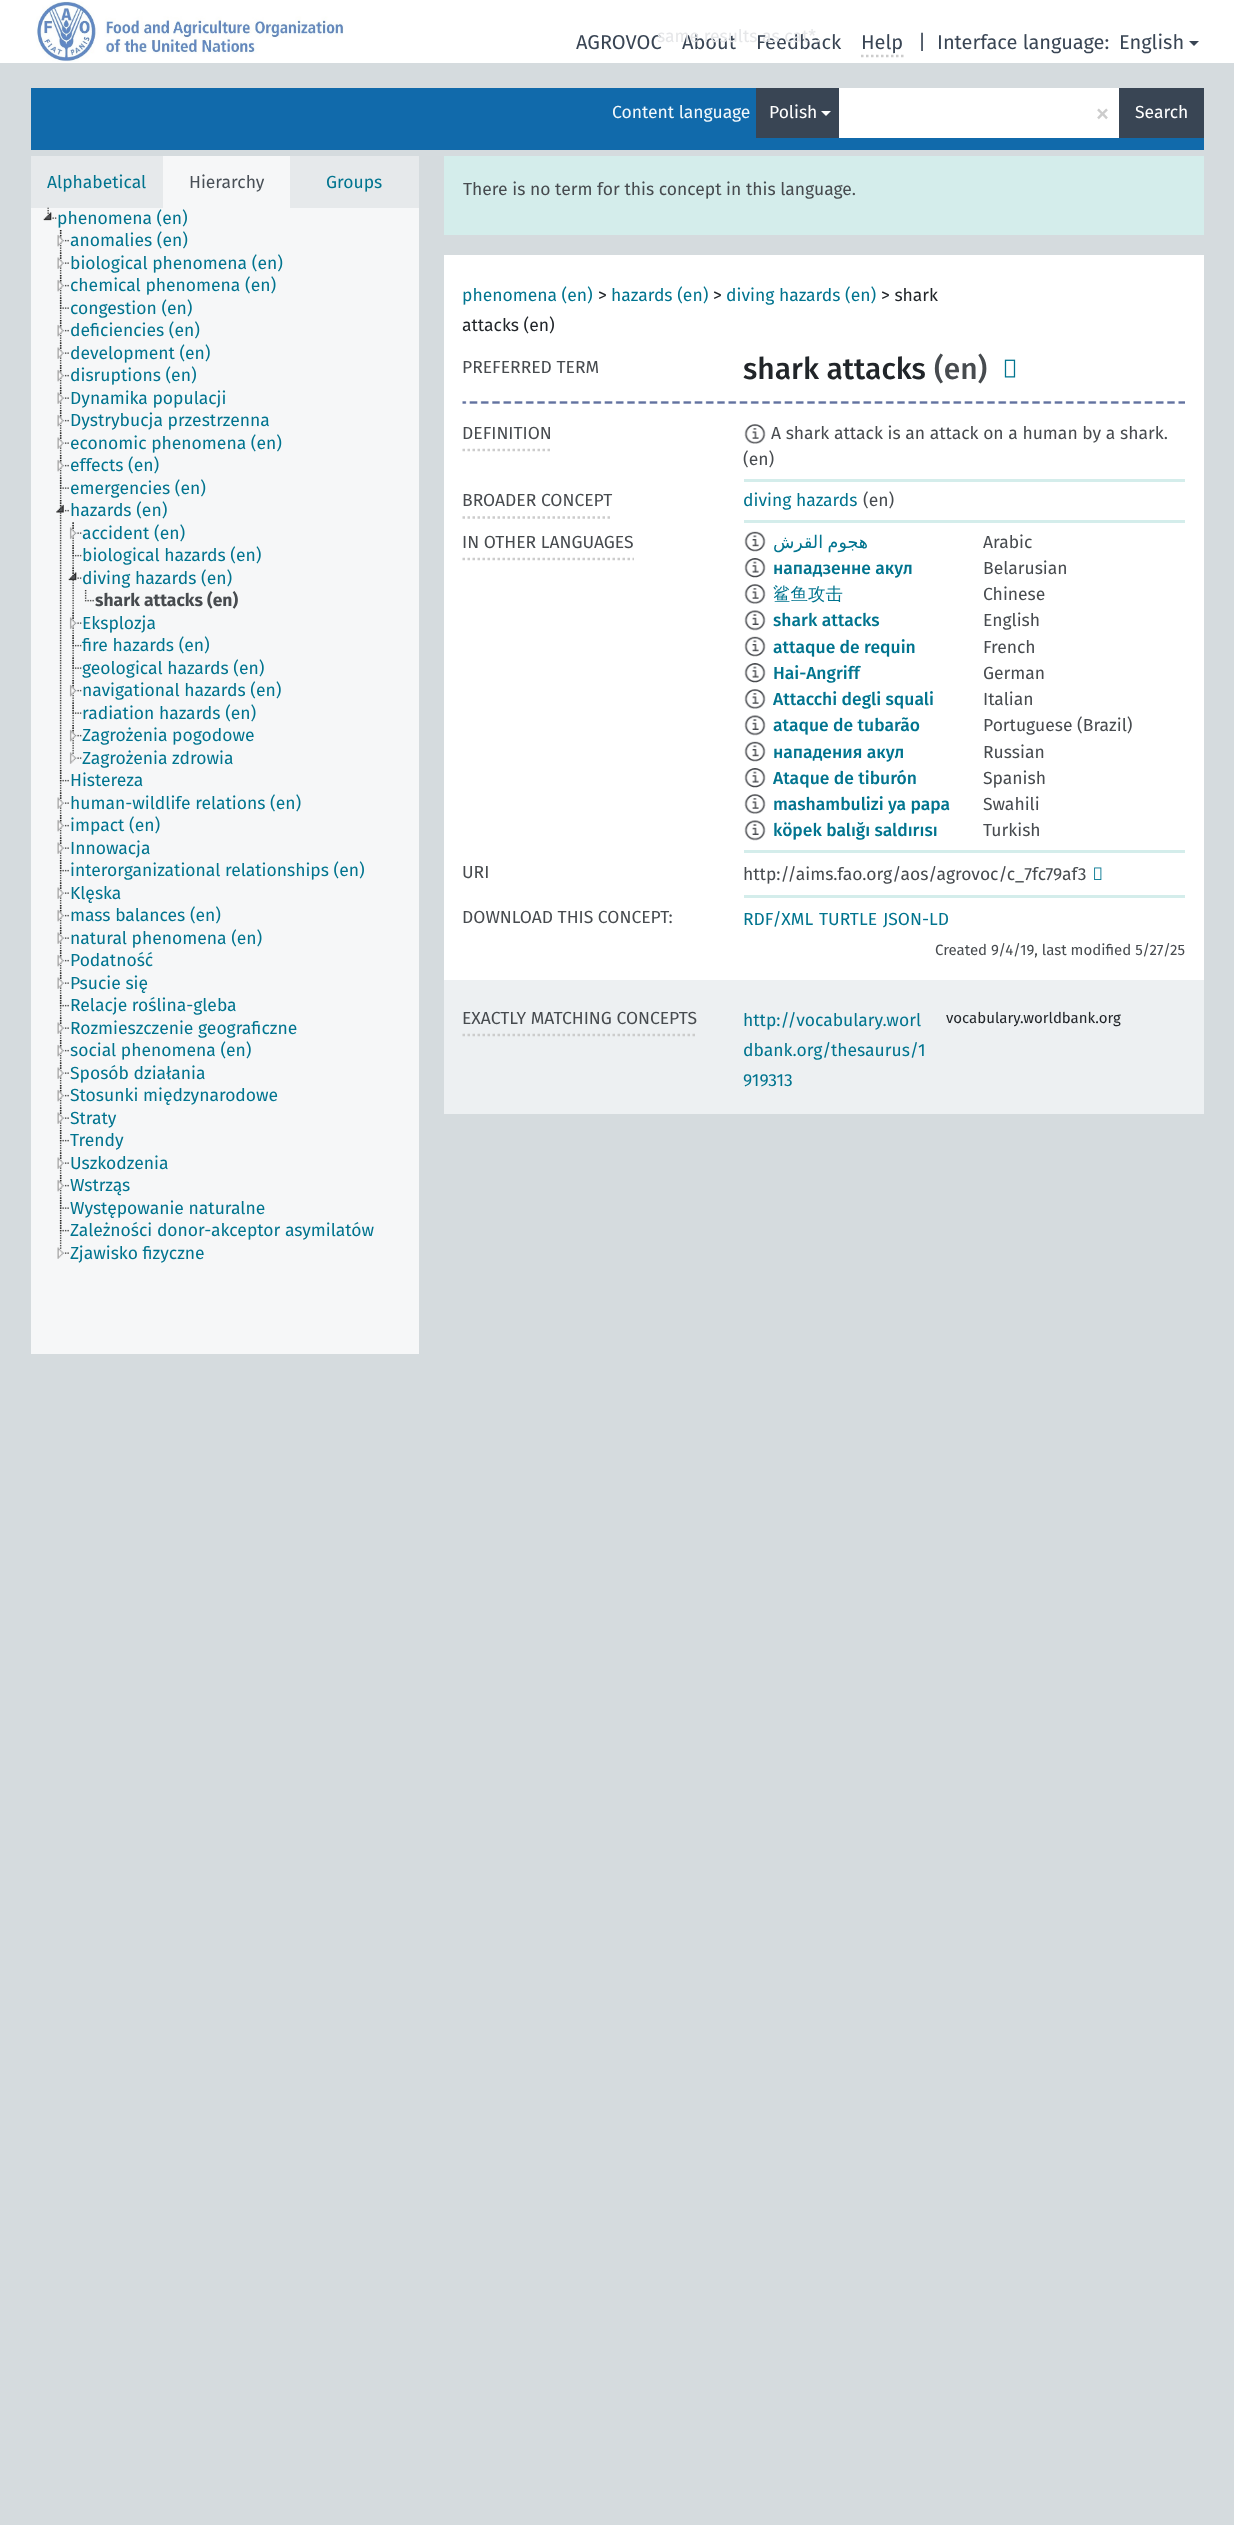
<svg xmlns="http://www.w3.org/2000/svg" width="1234" height="2525">
<rect width="100%" height="100%" fill="#d5dbde"/>
<rect width="1234" height="63" fill="#fff"/>
<image x="36" y="1" width="308" height="61" href="media/1.png"/>
<text x="576" y="49" style="font-family:Fira Sans;font-size:20px;fill:#394554">AGROVOC</text>
<text x="682" y="49" style="font-family:Fira Sans;font-size:20px;fill:#394554">About</text>
<text x="756" y="49" style="font-family:Fira Sans;font-size:20px;fill:#394554">Feedback</text>
<text x="657" y="42" style="font-family:Fira Sans;font-size:17.5px;fill:#e6e7e9">same results as cat*.</text>
<text x="861" y="49" style="font-family:Fira Sans;font-size:20px;fill:#394554">Help</text>
<path d="M861 56h43" fill="none" stroke="#ccc" stroke-width="2.5" stroke-dasharray="2.5 2.5"/>
<text x="918" y="49" style="font-family:Fira Sans;font-size:20px;fill:#394554">|</text>
<text x="937" y="49" style="font-family:Fira Sans;font-size:20px;fill:#394554">Interface language:</text>
<text x="1119" y="49" style="font-family:Fira Sans;font-size:20px;fill:#394554">English</text>
<path d="M1189 41h10l-5 5z" fill="#394554"/>
<rect x="31" y="88" width="1173" height="62" fill="#116aab"/>
<text x="612" y="118" style="font-family:Fira Sans;font-size:17.5px;fill:#f3f8fb">Content language</text>
<rect x="756" y="88" width="83" height="50" fill="#394554"/>
<text x="769" y="118" style="font-family:Fira Sans;font-size:17.5px;fill:#fff">Polish</text>
<path d="M821 111h10l-5 5z" fill="#fff"/>
<rect x="839" y="88" width="280" height="50" fill="#fff"/>
<text x="1095" y="123" style="font-family:Fira Sans;font-size:30px;fill:#ccc">×</text>
<rect x="1119" y="88" width="85" height="50" fill="#394554"/>
<text x="1135" y="118" style="font-family:Fira Sans;font-size:17.5px;fill:#fff">Search</text>
<rect x="31" y="156" width="132" height="52" fill="#e6e9eb"/>
<text x="47" y="188" style="font-family:Fira Sans;font-size:17.5px;fill:#00748f">Alphabetical</text>
<rect x="163" y="156" width="127" height="52" fill="#f6f7f8"/>
<text x="189" y="188" style="font-family:Fira Sans;font-size:17.5px;fill:#495057">Hierarchy</text>
<rect x="290" y="156" width="129" height="52" fill="#e6e9eb"/>
<text x="326" y="188" style="font-family:Fira Sans;font-size:17.5px;fill:#00748f">Groups</text>
<rect x="31" y="208" width="388" height="1146" fill="#f6f7f8"/>
<image x="43" y="207" width="14" height="14" href="media/2.png"/>
<text x="57" y="224" style="font-family:Fira Sans;font-size:17.5px;fill:#00748f">phenomena (en)</text>
<image x="59" y="230" width="3" height="22" href="media/3.png"/>
<image x="57" y="230" width="12" height="17" href="media/4.png"/>
<text x="70" y="246" style="font-family:Fira Sans;font-size:17.5px;fill:#00748f">anomalies (en)</text>
<image x="59" y="252" width="3" height="22" href="media/5.png"/>
<image x="57" y="252" width="12" height="17" href="media/6.png"/>
<text x="70" y="269" style="font-family:Fira Sans;font-size:17.5px;fill:#00748f">biological phenomena (en)</text>
<image x="59" y="275" width="3" height="22" href="media/3.png"/>
<image x="57" y="275" width="12" height="17" href="media/4.png"/>
<text x="70" y="291" style="font-family:Fira Sans;font-size:17.5px;fill:#00748f">chemical phenomena (en)</text>
<image x="59" y="297" width="3" height="22" href="media/5.png"/>
<image x="59" y="297" width="10" height="12" href="media/7.png"/>
<text x="70" y="314" style="font-family:Fira Sans;font-size:17.5px;fill:#00748f">congestion (en)</text>
<image x="59" y="320" width="3" height="22" href="media/3.png"/>
<image x="57" y="320" width="12" height="17" href="media/4.png"/>
<text x="70" y="336" style="font-family:Fira Sans;font-size:17.5px;fill:#00748f">deficiencies (en)</text>
<image x="59" y="342" width="3" height="22" href="media/5.png"/>
<image x="57" y="342" width="12" height="17" href="media/6.png"/>
<text x="70" y="359" style="font-family:Fira Sans;font-size:17.5px;fill:#00748f">development (en)</text>
<image x="59" y="365" width="3" height="22" href="media/3.png"/>
<image x="57" y="365" width="12" height="17" href="media/4.png"/>
<text x="70" y="381" style="font-family:Fira Sans;font-size:17.5px;fill:#00748f">disruptions (en)</text>
<image x="59" y="387" width="3" height="22" href="media/5.png"/>
<image x="57" y="387" width="12" height="17" href="media/6.png"/>
<text x="70" y="404" style="font-family:Fira Sans;font-size:17.5px;fill:#00748f">Dynamika populacji</text>
<image x="59" y="410" width="3" height="22" href="media/3.png"/>
<image x="57" y="410" width="12" height="17" href="media/4.png"/>
<text x="70" y="426" style="font-family:Fira Sans;font-size:17.5px;fill:#00748f">Dystrybucja przestrzenna</text>
<image x="59" y="432" width="3" height="22" href="media/5.png"/>
<image x="57" y="432" width="12" height="17" href="media/6.png"/>
<text x="70" y="449" style="font-family:Fira Sans;font-size:17.5px;fill:#00748f">economic phenomena (en)</text>
<image x="59" y="455" width="3" height="22" href="media/3.png"/>
<image x="57" y="455" width="12" height="17" href="media/4.png"/>
<text x="70" y="471" style="font-family:Fira Sans;font-size:17.5px;fill:#00748f">effects (en)</text>
<image x="59" y="477" width="3" height="22" href="media/5.png"/>
<image x="59" y="477" width="10" height="12" href="media/7.png"/>
<text x="70" y="494" style="font-family:Fira Sans;font-size:17.5px;fill:#00748f">emergencies (en)</text>
<image x="59" y="500" width="3" height="270" href="media/8.png"/>
<image x="56" y="500" width="13" height="13" href="media/9.png"/>
<text x="70" y="516" style="font-family:Fira Sans;font-size:17.5px;fill:#00748f">hazards (en)</text>
<image x="72" y="522" width="2" height="22" href="media/10.png"/>
<image x="69" y="522" width="13" height="17" href="media/11.png"/>
<text x="82" y="539" style="font-family:Fira Sans;font-size:17.5px;fill:#00748f">accident (en)</text>
<image x="72" y="545" width="2" height="22" href="media/12.png"/>
<image x="72" y="545" width="10" height="12" href="media/13.png"/>
<text x="82" y="561" style="font-family:Fira Sans;font-size:17.5px;fill:#00748f">biological hazards (en)</text>
<image x="72" y="567" width="2" height="45" href="media/14.png"/>
<image x="68" y="567" width="14" height="14" href="media/15.png"/>
<text x="82" y="584" style="font-family:Fira Sans;font-size:17.5px;fill:#00748f">diving hazards (en)</text>
<image x="84" y="590" width="10" height="12" href="media/16.png"/>
<text x="95" y="606" style="font-family:Fira Sans;font-size:17.5px;font-weight:bold;fill:#474b4f">shark attacks (en)</text>
<image x="72" y="612" width="2" height="22" href="media/10.png"/>
<image x="69" y="612" width="13" height="17" href="media/11.png"/>
<text x="82" y="629" style="font-family:Fira Sans;font-size:17.5px;fill:#00748f">Eksplozja</text>
<image x="72" y="635" width="2" height="22" href="media/12.png"/>
<image x="72" y="635" width="10" height="12" href="media/13.png"/>
<text x="82" y="651" style="font-family:Fira Sans;font-size:17.5px;fill:#00748f">fire hazards (en)</text>
<image x="72" y="657" width="2" height="22" href="media/10.png"/>
<image x="72" y="657" width="10" height="12" href="media/17.png"/>
<text x="82" y="674" style="font-family:Fira Sans;font-size:17.5px;fill:#00748f">geological hazards (en)</text>
<image x="72" y="680" width="2" height="22" href="media/12.png"/>
<image x="69" y="680" width="13" height="17" href="media/18.png"/>
<text x="82" y="696" style="font-family:Fira Sans;font-size:17.5px;fill:#00748f">navigational hazards (en)</text>
<image x="72" y="702" width="2" height="22" href="media/10.png"/>
<image x="72" y="702" width="10" height="12" href="media/17.png"/>
<text x="82" y="719" style="font-family:Fira Sans;font-size:17.5px;fill:#00748f">radiation hazards (en)</text>
<image x="72" y="725" width="2" height="22" href="media/12.png"/>
<image x="69" y="725" width="13" height="17" href="media/18.png"/>
<text x="82" y="741" style="font-family:Fira Sans;font-size:17.5px;fill:#00748f">Zagrożenia pogodowe</text>
<image x="69" y="747" width="13" height="17" href="media/19.png"/>
<text x="82" y="764" style="font-family:Fira Sans;font-size:17.5px;fill:#00748f">Zagrożenia zdrowia</text>
<image x="59" y="770" width="3" height="22" href="media/3.png"/>
<image x="59" y="770" width="10" height="12" href="media/20.png"/>
<text x="70" y="786" style="font-family:Fira Sans;font-size:17.5px;fill:#00748f">Histereza</text>
<image x="59" y="792" width="3" height="22" href="media/5.png"/>
<image x="57" y="792" width="12" height="17" href="media/6.png"/>
<text x="70" y="809" style="font-family:Fira Sans;font-size:17.5px;fill:#00748f">human-wildlife relations (en)</text>
<image x="59" y="815" width="3" height="22" href="media/3.png"/>
<image x="57" y="815" width="12" height="17" href="media/4.png"/>
<text x="70" y="831" style="font-family:Fira Sans;font-size:17.5px;fill:#00748f">impact (en)</text>
<image x="59" y="837" width="3" height="22" href="media/5.png"/>
<image x="57" y="837" width="12" height="17" href="media/6.png"/>
<text x="70" y="854" style="font-family:Fira Sans;font-size:17.5px;fill:#00748f">Innowacja</text>
<image x="59" y="860" width="3" height="22" href="media/3.png"/>
<image x="59" y="860" width="10" height="12" href="media/20.png"/>
<text x="70" y="876" style="font-family:Fira Sans;font-size:17.5px;fill:#00748f">interorganizational relationships (en)</text>
<image x="59" y="882" width="3" height="22" href="media/5.png"/>
<image x="57" y="882" width="12" height="17" href="media/6.png"/>
<text x="70" y="899" style="font-family:Fira Sans;font-size:17.5px;fill:#00748f">Klęska</text>
<image x="59" y="905" width="3" height="22" href="media/3.png"/>
<image x="57" y="905" width="12" height="17" href="media/4.png"/>
<text x="70" y="921" style="font-family:Fira Sans;font-size:17.5px;fill:#00748f">mass balances (en)</text>
<image x="59" y="927" width="3" height="22" href="media/5.png"/>
<image x="57" y="927" width="12" height="17" href="media/6.png"/>
<text x="70" y="944" style="font-family:Fira Sans;font-size:17.5px;fill:#00748f">natural phenomena (en)</text>
<image x="59" y="950" width="3" height="22" href="media/3.png"/>
<image x="57" y="950" width="12" height="17" href="media/4.png"/>
<text x="70" y="966" style="font-family:Fira Sans;font-size:17.5px;fill:#00748f">Podatność</text>
<image x="59" y="972" width="3" height="22" href="media/5.png"/>
<image x="57" y="972" width="12" height="17" href="media/6.png"/>
<text x="70" y="989" style="font-family:Fira Sans;font-size:17.5px;fill:#00748f">Psucie się</text>
<image x="59" y="995" width="3" height="22" href="media/3.png"/>
<image x="59" y="995" width="10" height="12" href="media/20.png"/>
<text x="70" y="1011" style="font-family:Fira Sans;font-size:17.5px;fill:#00748f">Relacje roślina-gleba</text>
<image x="59" y="1017" width="3" height="22" href="media/5.png"/>
<image x="57" y="1017" width="12" height="17" href="media/6.png"/>
<text x="70" y="1034" style="font-family:Fira Sans;font-size:17.5px;fill:#00748f">Rozmieszczenie geograficzne</text>
<image x="59" y="1040" width="3" height="22" href="media/3.png"/>
<image x="57" y="1040" width="12" height="17" href="media/4.png"/>
<text x="70" y="1056" style="font-family:Fira Sans;font-size:17.5px;fill:#00748f">social phenomena (en)</text>
<image x="59" y="1062" width="3" height="22" href="media/5.png"/>
<image x="57" y="1062" width="12" height="17" href="media/6.png"/>
<text x="70" y="1079" style="font-family:Fira Sans;font-size:17.5px;fill:#00748f">Sposób działania</text>
<image x="59" y="1085" width="3" height="22" href="media/3.png"/>
<image x="57" y="1085" width="12" height="17" href="media/4.png"/>
<text x="70" y="1101" style="font-family:Fira Sans;font-size:17.5px;fill:#00748f">Stosunki międzynarodowe</text>
<image x="59" y="1107" width="3" height="22" href="media/5.png"/>
<image x="57" y="1107" width="12" height="17" href="media/6.png"/>
<text x="70" y="1124" style="font-family:Fira Sans;font-size:17.5px;fill:#00748f">Straty</text>
<image x="59" y="1130" width="3" height="22" href="media/3.png"/>
<image x="59" y="1130" width="10" height="12" href="media/20.png"/>
<text x="70" y="1146" style="font-family:Fira Sans;font-size:17.5px;fill:#00748f">Trendy</text>
<image x="59" y="1152" width="3" height="22" href="media/5.png"/>
<image x="57" y="1152" width="12" height="17" href="media/6.png"/>
<text x="70" y="1169" style="font-family:Fira Sans;font-size:17.5px;fill:#00748f">Uszkodzenia</text>
<image x="59" y="1175" width="3" height="22" href="media/21.png"/>
<image x="57" y="1175" width="12" height="17" href="media/22.png"/>
<text x="70" y="1191" style="font-family:Fira Sans;font-size:17.5px;fill:#00748f">Wstrząs</text>
<image x="59" y="1197" width="3" height="22" href="media/5.png"/>
<image x="59" y="1197" width="10" height="12" href="media/7.png"/>
<text x="70" y="1214" style="font-family:Fira Sans;font-size:17.5px;fill:#00748f">Występowanie naturalne</text>
<image x="59" y="1220" width="3" height="22" href="media/3.png"/>
<image x="59" y="1220" width="10" height="12" href="media/20.png"/>
<text x="70" y="1236" style="font-family:Fira Sans;font-size:17.5px;fill:#00748f">Zależności donor-akceptor asymilatów</text>
<image x="57" y="1242" width="12" height="17" href="media/23.png"/>
<text x="70" y="1259" style="font-family:Fira Sans;font-size:17.5px;fill:#00748f">Zjawisko fizyczne</text>
<rect x="444" y="156" width="760" height="79" fill="#d4edeb"/>
<text x="463" y="195" style="font-family:Fira Sans;font-size:17.5px;fill:#474b4f">There is no term for this concept in this language.</text>
<rect x="444" y="255" width="760" height="725" fill="#fff"/>
<text x="462" y="301" style="font-family:Fira Sans;font-size:17.5px;fill:#00748f">phenomena (en)</text>
<text x="598" y="301" style="font-family:Fira Sans;font-size:17.5px;fill:#212529">&gt;</text>
<text x="611" y="301" style="font-family:Fira Sans;font-size:17.5px;fill:#00748f">hazards (en)</text>
<text x="713" y="301" style="font-family:Fira Sans;font-size:17.5px;fill:#212529">&gt;</text>
<text x="726" y="301" style="font-family:Fira Sans;font-size:17.5px;fill:#00748f">diving hazards (en)</text>
<text x="881" y="301" style="font-family:Fira Sans;font-size:17.5px;fill:#212529">&gt; shark</text>
<text x="462" y="331" style="font-family:Fira Sans;font-size:17.5px;fill:#212529">attacks (en)</text>
<text x="462" y="373" style="font-family:Fira Sans;font-size:17.5px;fill:#474b4f">PREFERRED TERM</text>
<text x="743" y="379" style="font-family:Fira Sans;font-size:30px;font-weight:500;fill:#212529">shark attacks</text>
<text x="934" y="379" style="font-family:Fira Sans;font-size:30px;font-weight:500;fill:#474b4f">(en)</text>
<image x="1004" y="359" width="12" height="19" href="media/24.png"/>
<image x="462" y="401" width="723" height="3" href="media/25.png"/>
<path d="M462.5 450h90" fill="none" stroke="#ccc" stroke-width="2.5" stroke-dasharray="2.5 2.5"/>
<text x="462" y="439" style="font-family:Fira Sans;font-size:17.5px;fill:#474b4f">DEFINITION</text>
<rect x="744" y="479" width="441" height="3" fill="#d4edeb"/>
<image x="744" y="424" width="22" height="20" href="media/26.png"/>
<text x="771" y="439" style="font-family:Fira Sans;font-size:17.5px;fill:#474b4f">A shark attack is an attack on a human by a shark.</text>
<text x="743" y="465" style="font-family:Fira Sans;font-size:17.5px;fill:#474b4f">(en)</text>
<path d="M462.5 517.5h150" fill="none" stroke="#ccc" stroke-width="2.5" stroke-dasharray="2.5 2.5"/>
<text x="462" y="506" style="font-family:Fira Sans;font-size:17.5px;fill:#474b4f">BROADER CONCEPT</text>
<rect x="744" y="520" width="441" height="3" fill="#d4edeb"/>
<text x="743" y="506" style="font-family:Fira Sans;font-size:17.5px;fill:#00748f">diving hazards</text>
<text x="863" y="506" style="font-family:Fira Sans;font-size:17.5px;fill:#474b4f">(en)</text>
<path d="M462.5 559h171.5" fill="none" stroke="#ccc" stroke-width="2.5" stroke-dasharray="2.5 2.5"/>
<text x="462" y="548" style="font-family:Fira Sans;font-size:17.5px;fill:#474b4f">IN OTHER LANGUAGES</text>
<rect x="744" y="850" width="441" height="3" fill="#d4edeb"/>
<image x="744" y="531" width="22" height="21" href="media/27.png"/>
<text x="868" y="548" word-spacing="-1" style="font-family:DejaVu Sans;font-size:17.5px;direction:rtl;fill:#00748f">هجوم القرش</text>
<text x="983" y="548" style="font-family:Fira Sans;font-size:17.5px;fill:#474b4f">Arabic</text>
<image x="744" y="558" width="22" height="20" href="media/28.png"/>
<text x="773" y="574" style="font-family:Fira Sans;font-size:17.5px;font-weight:500;fill:#00748f">нападзенне акул</text>
<text x="983" y="574" style="font-family:Fira Sans;font-size:17.5px;fill:#474b4f">Belarusian</text>
<image x="744" y="584" width="22" height="20" href="media/26.png"/>
<text x="773" y="600" style="font-family:WenQuanYi Zen Hei;font-size:17.5px;font-weight:500;fill:#00748f">鲨鱼攻击</text>
<text x="983" y="600" style="font-family:Fira Sans;font-size:17.5px;fill:#474b4f">Chinese</text>
<image x="744" y="610" width="22" height="21" href="media/29.png"/>
<text x="773" y="626" style="font-family:Fira Sans;font-size:17.5px;font-weight:500;fill:#00748f">shark attacks</text>
<text x="983" y="626" style="font-family:Fira Sans;font-size:17.5px;fill:#474b4f">English</text>
<image x="744" y="636" width="22" height="21" href="media/27.png"/>
<text x="773" y="653" style="font-family:Fira Sans;font-size:17.5px;font-weight:500;fill:#00748f">attaque de requin</text>
<text x="983" y="653" style="font-family:Fira Sans;font-size:17.5px;fill:#474b4f">French</text>
<image x="744" y="663" width="22" height="20" href="media/28.png"/>
<text x="773" y="679" style="font-family:Fira Sans;font-size:17.5px;font-weight:500;fill:#00748f">Hai-Angriff</text>
<text x="983" y="679" style="font-family:Fira Sans;font-size:17.5px;fill:#474b4f">German</text>
<image x="744" y="689" width="22" height="20" href="media/26.png"/>
<text x="773" y="705" style="font-family:Fira Sans;font-size:17.5px;font-weight:500;fill:#00748f">Attacchi degli squali</text>
<text x="983" y="705" style="font-family:Fira Sans;font-size:17.5px;fill:#474b4f">Italian</text>
<image x="744" y="715" width="22" height="21" href="media/29.png"/>
<text x="773" y="731" style="font-family:Fira Sans;font-size:17.5px;font-weight:500;fill:#00748f">ataque de tubarão</text>
<text x="983" y="731" style="font-family:Fira Sans;font-size:17.5px;fill:#474b4f">Portuguese (Brazil)</text>
<image x="744" y="741" width="22" height="21" href="media/27.png"/>
<text x="773" y="758" style="font-family:Fira Sans;font-size:17.5px;font-weight:500;fill:#00748f">нападения акул</text>
<text x="983" y="758" style="font-family:Fira Sans;font-size:17.5px;fill:#474b4f">Russian</text>
<image x="744" y="768" width="22" height="20" href="media/28.png"/>
<text x="773" y="784" style="font-family:Fira Sans;font-size:17.5px;font-weight:500;fill:#00748f">Ataque de tiburón</text>
<text x="983" y="784" style="font-family:Fira Sans;font-size:17.5px;fill:#474b4f">Spanish</text>
<image x="744" y="794" width="22" height="20" href="media/26.png"/>
<text x="773" y="810" style="font-family:Fira Sans;font-size:17.5px;font-weight:500;fill:#00748f">mashambulizi ya papa</text>
<text x="983" y="810" style="font-family:Fira Sans;font-size:17.5px;fill:#474b4f">Swahili</text>
<image x="744" y="820" width="22" height="21" href="media/30.png"/>
<text x="773" y="836" style="font-family:Fira Sans;font-size:17.5px;font-weight:500;fill:#00748f">köpek balığı saldırısı</text>
<text x="983" y="836" style="font-family:Fira Sans;font-size:17.5px;fill:#474b4f">Turkish</text>
<text x="462" y="878" style="font-family:Fira Sans;font-size:17.5px;fill:#474b4f">URI</text>
<rect x="744" y="895" width="441" height="3" fill="#d4edeb"/>
<text x="743" y="880" style="font-family:Fira Sans;font-size:17.5px;fill:#474b4f">http://aims.fao.org/aos/agrovoc/c_7fc79af3</text>
<image x="1094" y="867" width="8" height="13" href="media/31.png"/>
<text x="462" y="923" style="font-family:Fira Sans;font-size:17.5px;fill:#474b4f">DOWNLOAD THIS CONCEPT:</text>
<text x="743" y="925" style="font-family:Fira Sans;font-size:17.5px;fill:#00748f">RDF/XML</text>
<text x="819" y="925" style="font-family:Fira Sans;font-size:17.5px;fill:#00748f">TURTLE</text>
<text x="883" y="925" style="font-family:Fira Sans;font-size:17.5px;fill:#00748f">JSON-LD</text>
<text x="935" y="955" style="font-family:Fira Sans;font-size:15px;fill:#474b4f">Created 9/4/19, last modified 5/27/25</text>
<rect x="444" y="980" width="760" height="134" fill="#edf0f2"/>
<path d="M462.5 1035h235" fill="none" stroke="#ccc" stroke-width="2.5" stroke-dasharray="2.5 2.5"/>
<text x="462" y="1024" style="font-family:Fira Sans;font-size:17.5px;fill:#474b4f">EXACTLY MATCHING CONCEPTS</text>
<text x="743" y="1026" style="font-family:Fira Sans;font-size:17.5px;fill:#00748f">http://vocabulary.worl</text>
<text x="743" y="1056" style="font-family:Fira Sans;font-size:17.5px;fill:#00748f">dbank.org/thesaurus/1</text>
<text x="743" y="1086" style="font-family:Fira Sans;font-size:17.5px;fill:#00748f">919313</text>
<text x="946" y="1023" style="font-family:Fira Sans;font-size:15px;fill:#212529">vocabulary.worldbank.org</text>
</svg>
